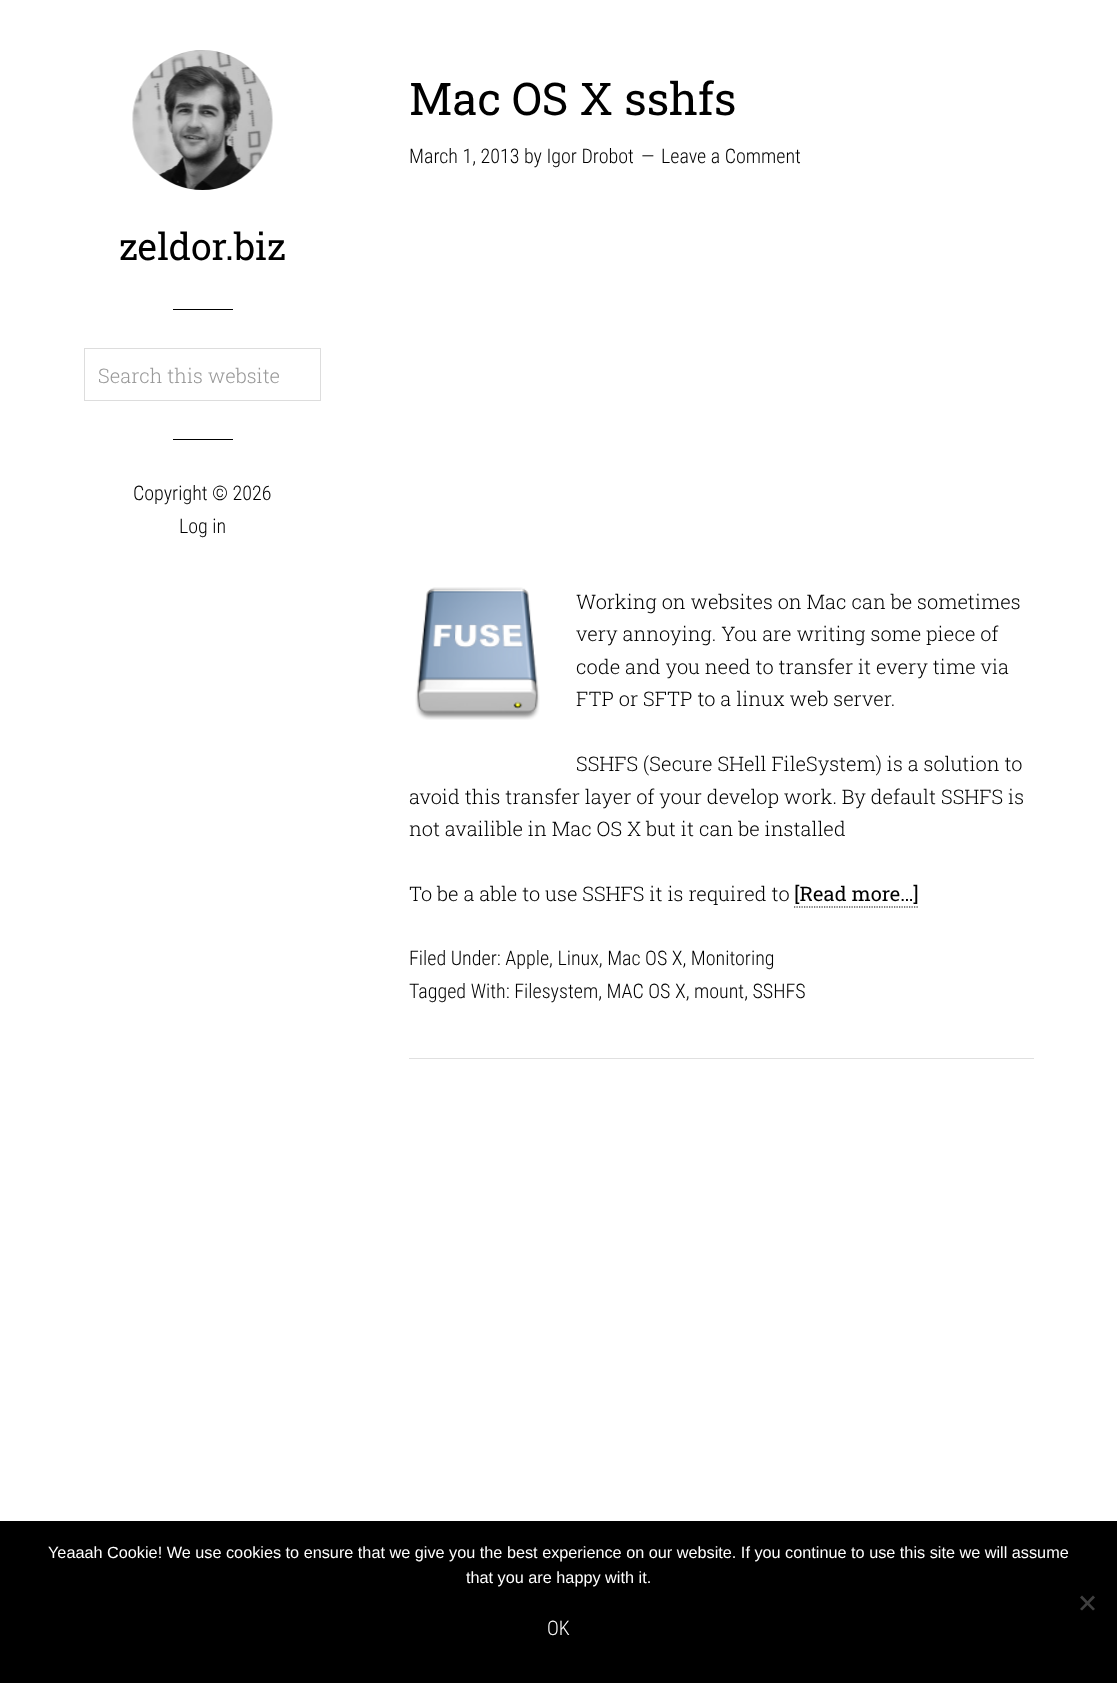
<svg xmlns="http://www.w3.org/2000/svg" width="1117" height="1683">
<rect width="100%" height="100%" fill="#fff"/>
<image x="132" y="50" width="141" height="140" href="media/1.png"/>
<text x="119" y="260" style="font-family:Roboto Slab;font-size:37.5px;fill:#000">zeldor.biz</text>
<rect x="173" y="309" width="60" height="1" fill="#000"/>
<rect x="84.5" y="348.5" width="236" height="52" fill="none" stroke="#ddd"/>
<text x="98" y="383" style="font-family:Roboto Slab;font-size:20px;font-weight:300;fill:#999">Search this website</text>
<rect x="173" y="439" width="60" height="1" fill="#000"/>
<text x="133" y="500" style="font-family:Roboto Condensed;font-size:20px;font-weight:300;fill:#000">Copyright © 2026</text>
<text x="179" y="533" style="font-family:Roboto Condensed;font-size:20px;font-weight:300;fill:#000">Log in</text>
<rect x="409" y="1058" width="625" height="1" fill="#e0e0e0"/>
<text x="409" y="115" style="font-family:Roboto Slab;font-size:45px;fill:#000">Mac OS X sshfs</text>
<text x="409" y="163" style="font-family:Roboto Condensed;font-size:20px;font-weight:300;fill:#000">March 1, 2013 by Igor Drobot</text>
<text x="641" y="163" style="font-family:Roboto Condensed;font-size:20px;font-weight:300;fill:#000">—</text>
<text x="661" y="163" style="font-family:Roboto Condensed;font-size:20px;font-weight:300;fill:#000">Leave a Comment</text>
<image x="415" y="587" width="125" height="133" href="media/2.png"/>
<text x="576" y="609" style="font-family:Roboto Slab;font-size:20px;font-weight:300;fill:#000">Working on websites on Mac can be sometimes</text>
<text x="576" y="641" style="font-family:Roboto Slab;font-size:20px;font-weight:300;fill:#000">very annoying. You are writing some piece of</text>
<text x="576" y="674" style="font-family:Roboto Slab;font-size:20px;font-weight:300;fill:#000">code and you need to transfer it every time via</text>
<text x="576" y="706" style="font-family:Roboto Slab;font-size:20px;font-weight:300;fill:#000">FTP or SFTP to a linux web server.</text>
<text x="576" y="771" style="font-family:Roboto Slab;font-size:20px;font-weight:300;fill:#000">SSHFS (Secure SHell FileSystem) is a solution to</text>
<text x="409" y="804" style="font-family:Roboto Slab;font-size:20px;font-weight:300;fill:#000">avoid this transfer layer of your develop work. By default SSHFS is</text>
<text x="409" y="836" style="font-family:Roboto Slab;font-size:20px;font-weight:300;fill:#000">not availible in Mac OS X but it can be installed</text>
<text x="409" y="901" style="font-family:Roboto Slab;font-size:20px;font-weight:300;fill:#000">To be a able to use SSHFS it is required to</text>
<text x="794" y="901" style="font-family:Roboto Slab;font-size:20px;fill:#000">[Read more…]</text>
<path d="M794 907h125" fill="none" stroke="#000" stroke-width="1.2" stroke-dasharray="1.25 1.25"/>
<text x="409" y="965" style="font-family:Roboto Condensed;font-size:20px;font-weight:300;fill:#000">Filed Under: Apple, Linux, Mac OS X, Monitoring</text>
<text x="409" y="998" style="font-family:Roboto Condensed;font-size:20px;font-weight:300;fill:#000">Tagged With: Filesystem, MAC OS X, mount, SSHFS</text>
<rect y="1521" width="1117" height="162" fill="#000"/>
<text x="48" y="1558" style="font-family:Liberation Sans;font-size:16.25px;fill:#fff">Yeaaah Cookie! We use cookies to ensure that we give you the best experience on our website. If you continue to use this site we will assume</text>
<text x="466" y="1583" style="font-family:Liberation Sans;font-size:16.25px;fill:#fff">that you are happy with it.</text>
<path d="M1093 1595.5l2 2l-13 13l-2-1.5z" fill="#404040"/>
<path d="M1080 1597.5l2-2l13 13.5l-2 1.5z" fill="#404040"/>
<text x="547" y="1635" style="font-family:Roboto Condensed;font-size:20px;font-weight:300;fill:#fff">OK</text>
</svg>
